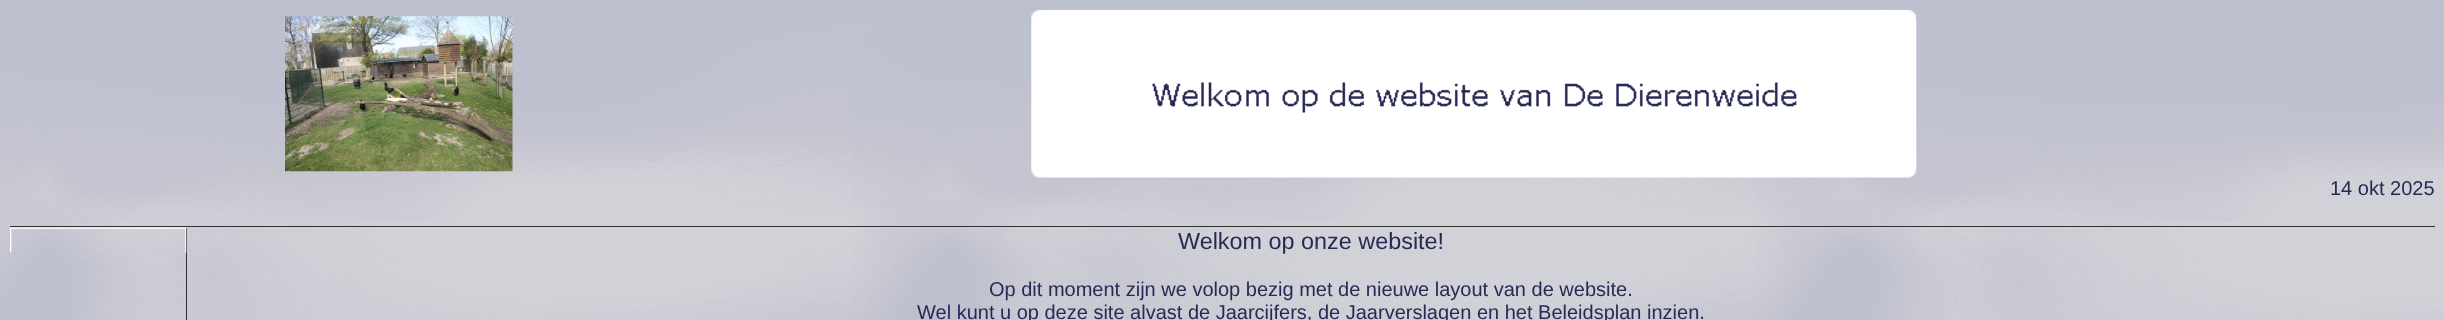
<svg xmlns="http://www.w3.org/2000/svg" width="2444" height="320">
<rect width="100%" height="100%" fill="#fff"/>
<image x="0" y="0" width="2444" height="320" href="media/1.png"/>
<image x="285" y="16" width="228" height="156" href="media/2.png"/>
<image x="1031" y="10" width="886" height="168" href="media/3.png"/>
<rect x="10" y="226" width="2425" height="1" fill="#333"/>
<text x="2330" y="195" style="font-family:Liberation Sans;font-size:20px;fill:#282a55">14 okt 2025</text>
<rect x="186" y="228" width="1" height="92" fill="#333"/>
<image x="10" y="227" width="177" height="26" href="media/4.png"/>
<text x="1178" y="249" style="font-family:Liberation Sans;font-size:23.4px;fill:#282a55">Welkom op onze website!</text>
<text x="989" y="296" style="font-family:Liberation Sans;font-size:20px;fill:#282a55">Op dit moment zijn we volop bezig met de nieuwe layout van de website.</text>
<text x="917" y="319" style="font-family:Liberation Sans;font-size:20px;fill:#282a55">Wel kunt u op deze site alvast de Jaarcijfers, de Jaarverslagen en het Beleidsplan inzien.</text>
</svg>
